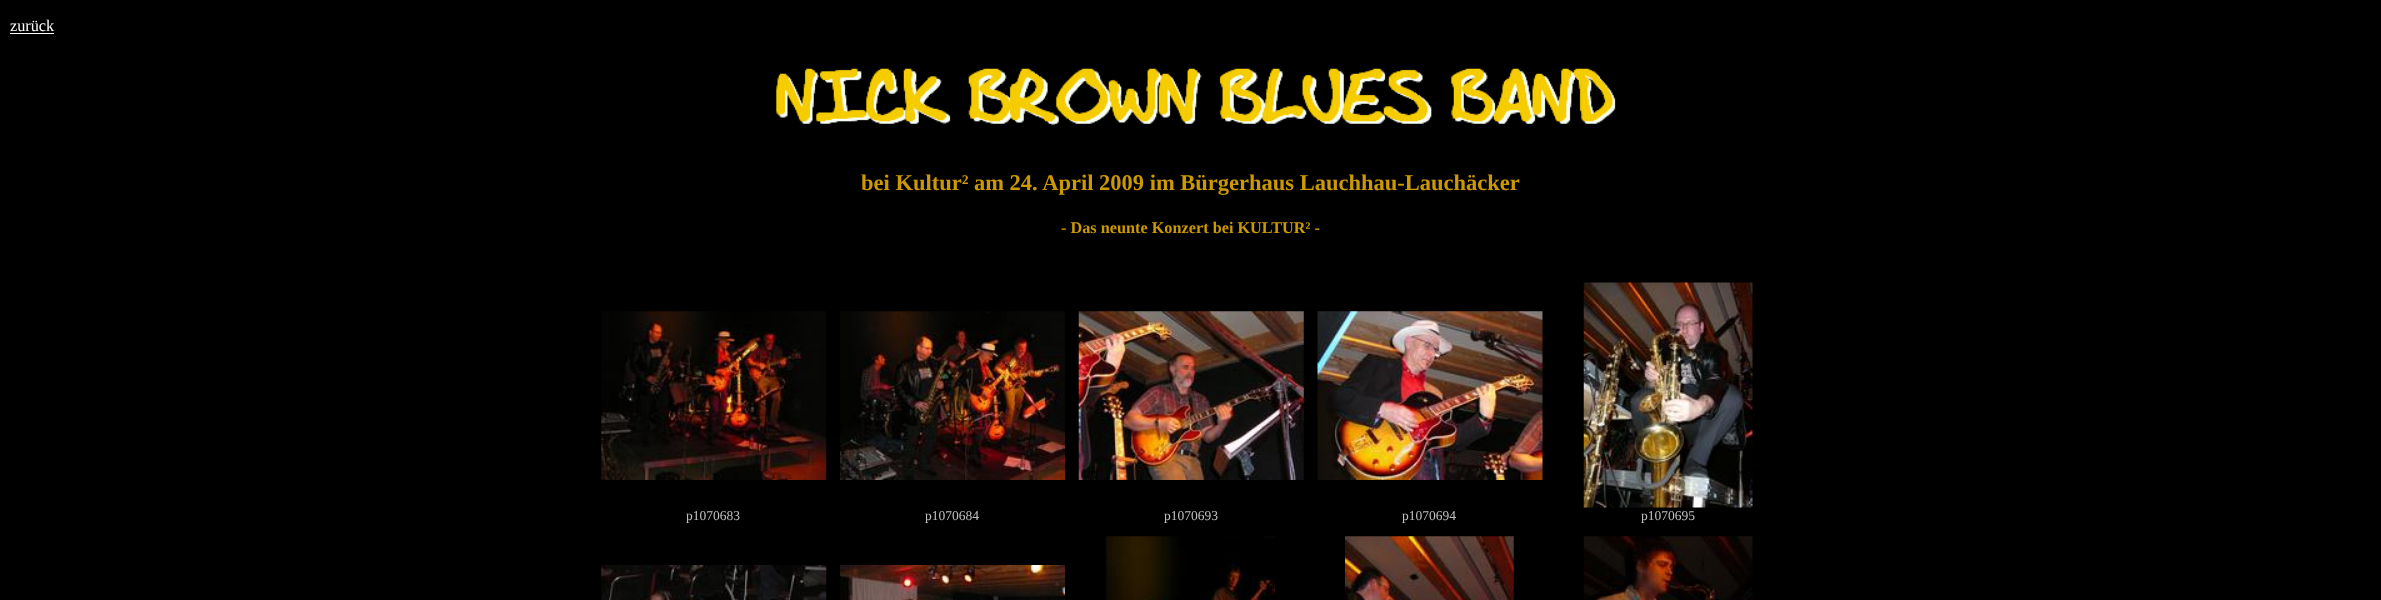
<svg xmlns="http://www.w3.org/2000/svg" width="2381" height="600">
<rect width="100%" height="100%" fill="#000"/>
<text x="10" y="31" style="font-family:Liberation Serif;font-size:16.25px;fill:#fff">zurück</text>
<rect x="10" y="33" width="44" height="1" fill="#fff"/>
<image x="776" y="68" width="840" height="58" href="media/1.png"/>
<text x="861" y="190" style="font-family:Liberation Serif;font-size:22.5px;font-weight:bold;fill:#c90">bei Kultur² am 24. April 2009 im Bürgerhaus Lauchhau-Lauchäcker</text>
<text x="1061" y="233" style="font-family:Liberation Serif;font-size:16.25px;font-weight:bold;fill:#c90">- Das neunte Konzert bei KULTUR² -</text>
<image x="601" y="311" width="226" height="169" href="media/2.png"/>
<text x="686" y="520" style="font-family:Liberation Serif;font-size:13.5px;fill:#c0c0c0">p1070683</text>
<image x="840" y="311" width="225" height="169" href="media/3.png"/>
<text x="925" y="520" style="font-family:Liberation Serif;font-size:13.5px;fill:#c0c0c0">p1070684</text>
<image x="1078" y="311" width="226" height="169" href="media/4.png"/>
<text x="1164" y="520" style="font-family:Liberation Serif;font-size:13.5px;fill:#c0c0c0">p1070693</text>
<image x="1317" y="311" width="226" height="169" href="media/5.png"/>
<text x="1402" y="520" style="font-family:Liberation Serif;font-size:13.5px;fill:#c0c0c0">p1070694</text>
<image x="1583" y="282" width="170" height="226" href="media/6.png"/>
<text x="1641" y="520" style="font-family:Liberation Serif;font-size:13.5px;fill:#c0c0c0">p1070695</text>
<image x="601" y="565" width="226" height="35" href="media/7.png"/>
<image x="840" y="565" width="225" height="35" href="media/8.png"/>
<image x="1106" y="536" width="169" height="64" href="media/9.png"/>
<image x="1345" y="536" width="169" height="64" href="media/10.png"/>
<image x="1583" y="536" width="170" height="64" href="media/11.png"/>
</svg>
